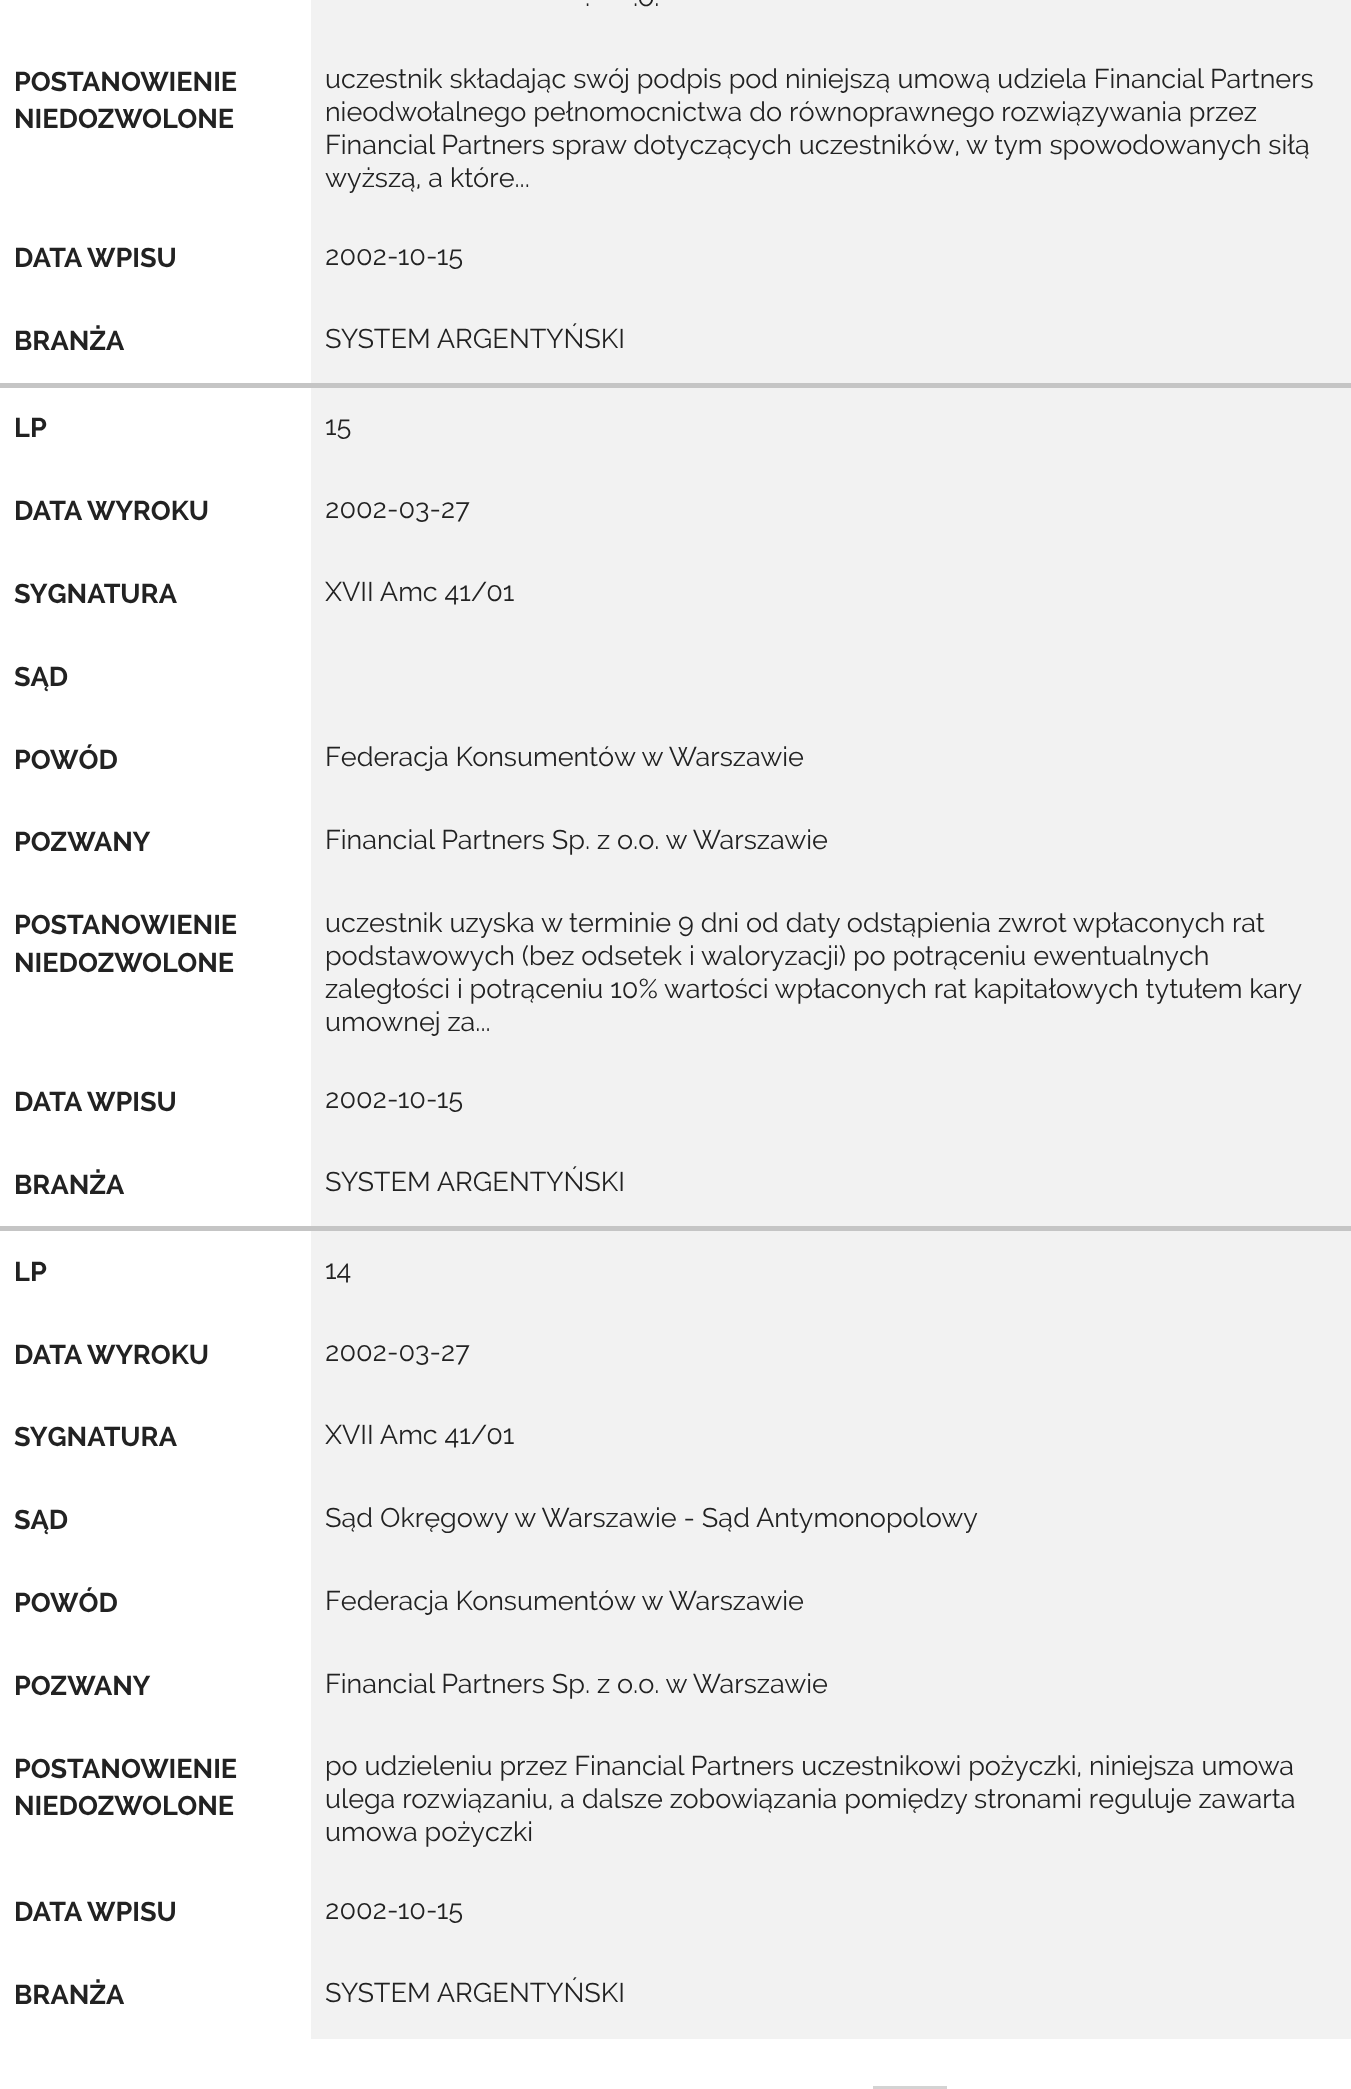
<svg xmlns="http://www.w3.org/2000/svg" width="1351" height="2089">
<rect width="100%" height="100%" fill="#fff"/>
<rect x="311" width="1040" height="383" fill="#f2f2f2"/>
<text x="585" y="6" style="font-family:Raleway;font-size:27px;fill:#222">.</text>
<text x="633" y="6" style="font-family:Raleway;font-size:27px;fill:#222">.o.</text>
<text x="14" y="91" style="font-family:Raleway;font-size:27px;font-weight:bold;fill:#222">POSTANOWIENIE</text>
<text x="14" y="128" style="font-family:Raleway;font-size:27px;font-weight:bold;fill:#222">NIEDOZWOLONE</text>
<text x="325" y="88" style="font-family:Raleway;font-size:27px;fill:#222">uczestnik składając swój podpis pod niniejszą umową udziela Financial Partners</text>
<text x="325" y="121" style="font-family:Raleway;font-size:27px;fill:#222">nieodwołalnego pełnomocnictwa do równoprawnego rozwiązywania przez</text>
<text x="325" y="154" style="font-family:Raleway;font-size:27px;fill:#222">Financial Partners spraw dotyczących uczestników, w tym spowodowanych siłą</text>
<text x="325" y="187" style="font-family:Raleway;font-size:27px;fill:#222">wyższą, a które...</text>
<text x="14" y="267" style="font-family:Raleway;font-size:27px;font-weight:bold;fill:#222">DATA WPISU</text>
<text x="325" y="265" style="font-family:Raleway;font-size:27px;fill:#222">2002-10-15</text>
<text x="14" y="350" style="font-family:Raleway;font-size:27px;font-weight:bold;fill:#222">BRANŻA</text>
<text x="325" y="348" style="font-family:Raleway;font-size:27px;fill:#222">SYSTEM ARGENTYŃSKI</text>
<rect y="383" width="1351" height="5" fill="#c5c5c5"/>
<text x="14" y="437" style="font-family:Raleway;font-size:27px;font-weight:bold;fill:#222">LP</text>
<rect x="311" y="388" width="1040" height="838" fill="#f2f2f2"/>
<text x="325" y="435" style="font-family:Raleway;font-size:27px;fill:#222">15</text>
<text x="14" y="520" style="font-family:Raleway;font-size:27px;font-weight:bold;fill:#222">DATA WYROKU</text>
<text x="325" y="518" style="font-family:Raleway;font-size:27px;fill:#222">2002-03-27</text>
<text x="14" y="603" style="font-family:Raleway;font-size:27px;font-weight:bold;fill:#222">SYGNATURA</text>
<text x="325" y="601" style="font-family:Raleway;font-size:27px;fill:#222">XVII Amc 41/01</text>
<text x="14" y="686" style="font-family:Raleway;font-size:27px;font-weight:bold;fill:#222">SĄD</text>
<text x="14" y="769" style="font-family:Raleway;font-size:27px;font-weight:bold;fill:#222">POWÓD</text>
<text x="325" y="766" style="font-family:Raleway;font-size:27px;fill:#222">Federacja Konsumentów w Warszawie</text>
<text x="14" y="851" style="font-family:Raleway;font-size:27px;font-weight:bold;fill:#222">POZWANY</text>
<text x="325" y="849" style="font-family:Raleway;font-size:27px;fill:#222">Financial Partners Sp. z o.o. w Warszawie</text>
<text x="14" y="934" style="font-family:Raleway;font-size:27px;font-weight:bold;fill:#222">POSTANOWIENIE</text>
<text x="14" y="972" style="font-family:Raleway;font-size:27px;font-weight:bold;fill:#222">NIEDOZWOLONE</text>
<text x="325" y="932" style="font-family:Raleway;font-size:27px;fill:#222">uczestnik uzyska w terminie 9 dni od daty odstąpienia zwrot wpłaconych rat</text>
<text x="325" y="965" style="font-family:Raleway;font-size:27px;fill:#222">podstawowych (bez odsetek i waloryzacji) po potrąceniu ewentualnych</text>
<text x="325" y="998" style="font-family:Raleway;font-size:27px;fill:#222">zaległości i potrąceniu 10% wartości wpłaconych rat kapitałowych tytułem kary</text>
<text x="325" y="1031" style="font-family:Raleway;font-size:27px;fill:#222">umownej za...</text>
<text x="14" y="1111" style="font-family:Raleway;font-size:27px;font-weight:bold;fill:#222">DATA WPISU</text>
<text x="325" y="1108" style="font-family:Raleway;font-size:27px;fill:#222">2002-10-15</text>
<text x="14" y="1194" style="font-family:Raleway;font-size:27px;font-weight:bold;fill:#222">BRANŻA</text>
<text x="325" y="1191" style="font-family:Raleway;font-size:27px;fill:#222">SYSTEM ARGENTYŃSKI</text>
<rect y="1226" width="1351" height="5" fill="#c5c5c5"/>
<text x="14" y="1281" style="font-family:Raleway;font-size:27px;font-weight:bold;fill:#222">LP</text>
<rect x="311" y="1231" width="1040" height="808" fill="#f2f2f2"/>
<text x="325" y="1279" style="font-family:Raleway;font-size:27px;fill:#222">14</text>
<text x="14" y="1364" style="font-family:Raleway;font-size:27px;font-weight:bold;fill:#222">DATA WYROKU</text>
<text x="325" y="1361" style="font-family:Raleway;font-size:27px;fill:#222">2002-03-27</text>
<text x="14" y="1446" style="font-family:Raleway;font-size:27px;font-weight:bold;fill:#222">SYGNATURA</text>
<text x="325" y="1444" style="font-family:Raleway;font-size:27px;fill:#222">XVII Amc 41/01</text>
<text x="14" y="1529" style="font-family:Raleway;font-size:27px;font-weight:bold;fill:#222">SĄD</text>
<text x="325" y="1527" style="font-family:Raleway;font-size:27px;fill:#222">Sąd Okręgowy w Warszawie - Sąd Antymonopolowy</text>
<text x="14" y="1612" style="font-family:Raleway;font-size:27px;font-weight:bold;fill:#222">POWÓD</text>
<text x="325" y="1610" style="font-family:Raleway;font-size:27px;fill:#222">Federacja Konsumentów w Warszawie</text>
<text x="14" y="1695" style="font-family:Raleway;font-size:27px;font-weight:bold;fill:#222">POZWANY</text>
<text x="325" y="1693" style="font-family:Raleway;font-size:27px;fill:#222">Financial Partners Sp. z o.o. w Warszawie</text>
<text x="14" y="1778" style="font-family:Raleway;font-size:27px;font-weight:bold;fill:#222">POSTANOWIENIE</text>
<text x="14" y="1815" style="font-family:Raleway;font-size:27px;font-weight:bold;fill:#222">NIEDOZWOLONE</text>
<text x="325" y="1775" style="font-family:Raleway;font-size:27px;fill:#222">po udzieleniu przez Financial Partners uczestnikowi pożyczki, niniejsza umowa</text>
<text x="325" y="1808" style="font-family:Raleway;font-size:27px;fill:#222">ulega rozwiązaniu, a dalsze zobowiązania pomiędzy stronami reguluje zawarta</text>
<text x="325" y="1841" style="font-family:Raleway;font-size:27px;fill:#222">umowa pożyczki</text>
<text x="14" y="1921" style="font-family:Raleway;font-size:27px;font-weight:bold;fill:#222">DATA WPISU</text>
<text x="325" y="1919" style="font-family:Raleway;font-size:27px;fill:#222">2002-10-15</text>
<text x="14" y="2004" style="font-family:Raleway;font-size:27px;font-weight:bold;fill:#222">BRANŻA</text>
<text x="325" y="2002" style="font-family:Raleway;font-size:27px;fill:#222">SYSTEM ARGENTYŃSKI</text>
<rect x="873" y="2086" width="74" height="3" fill="#d3d3d3"/>
</svg>
